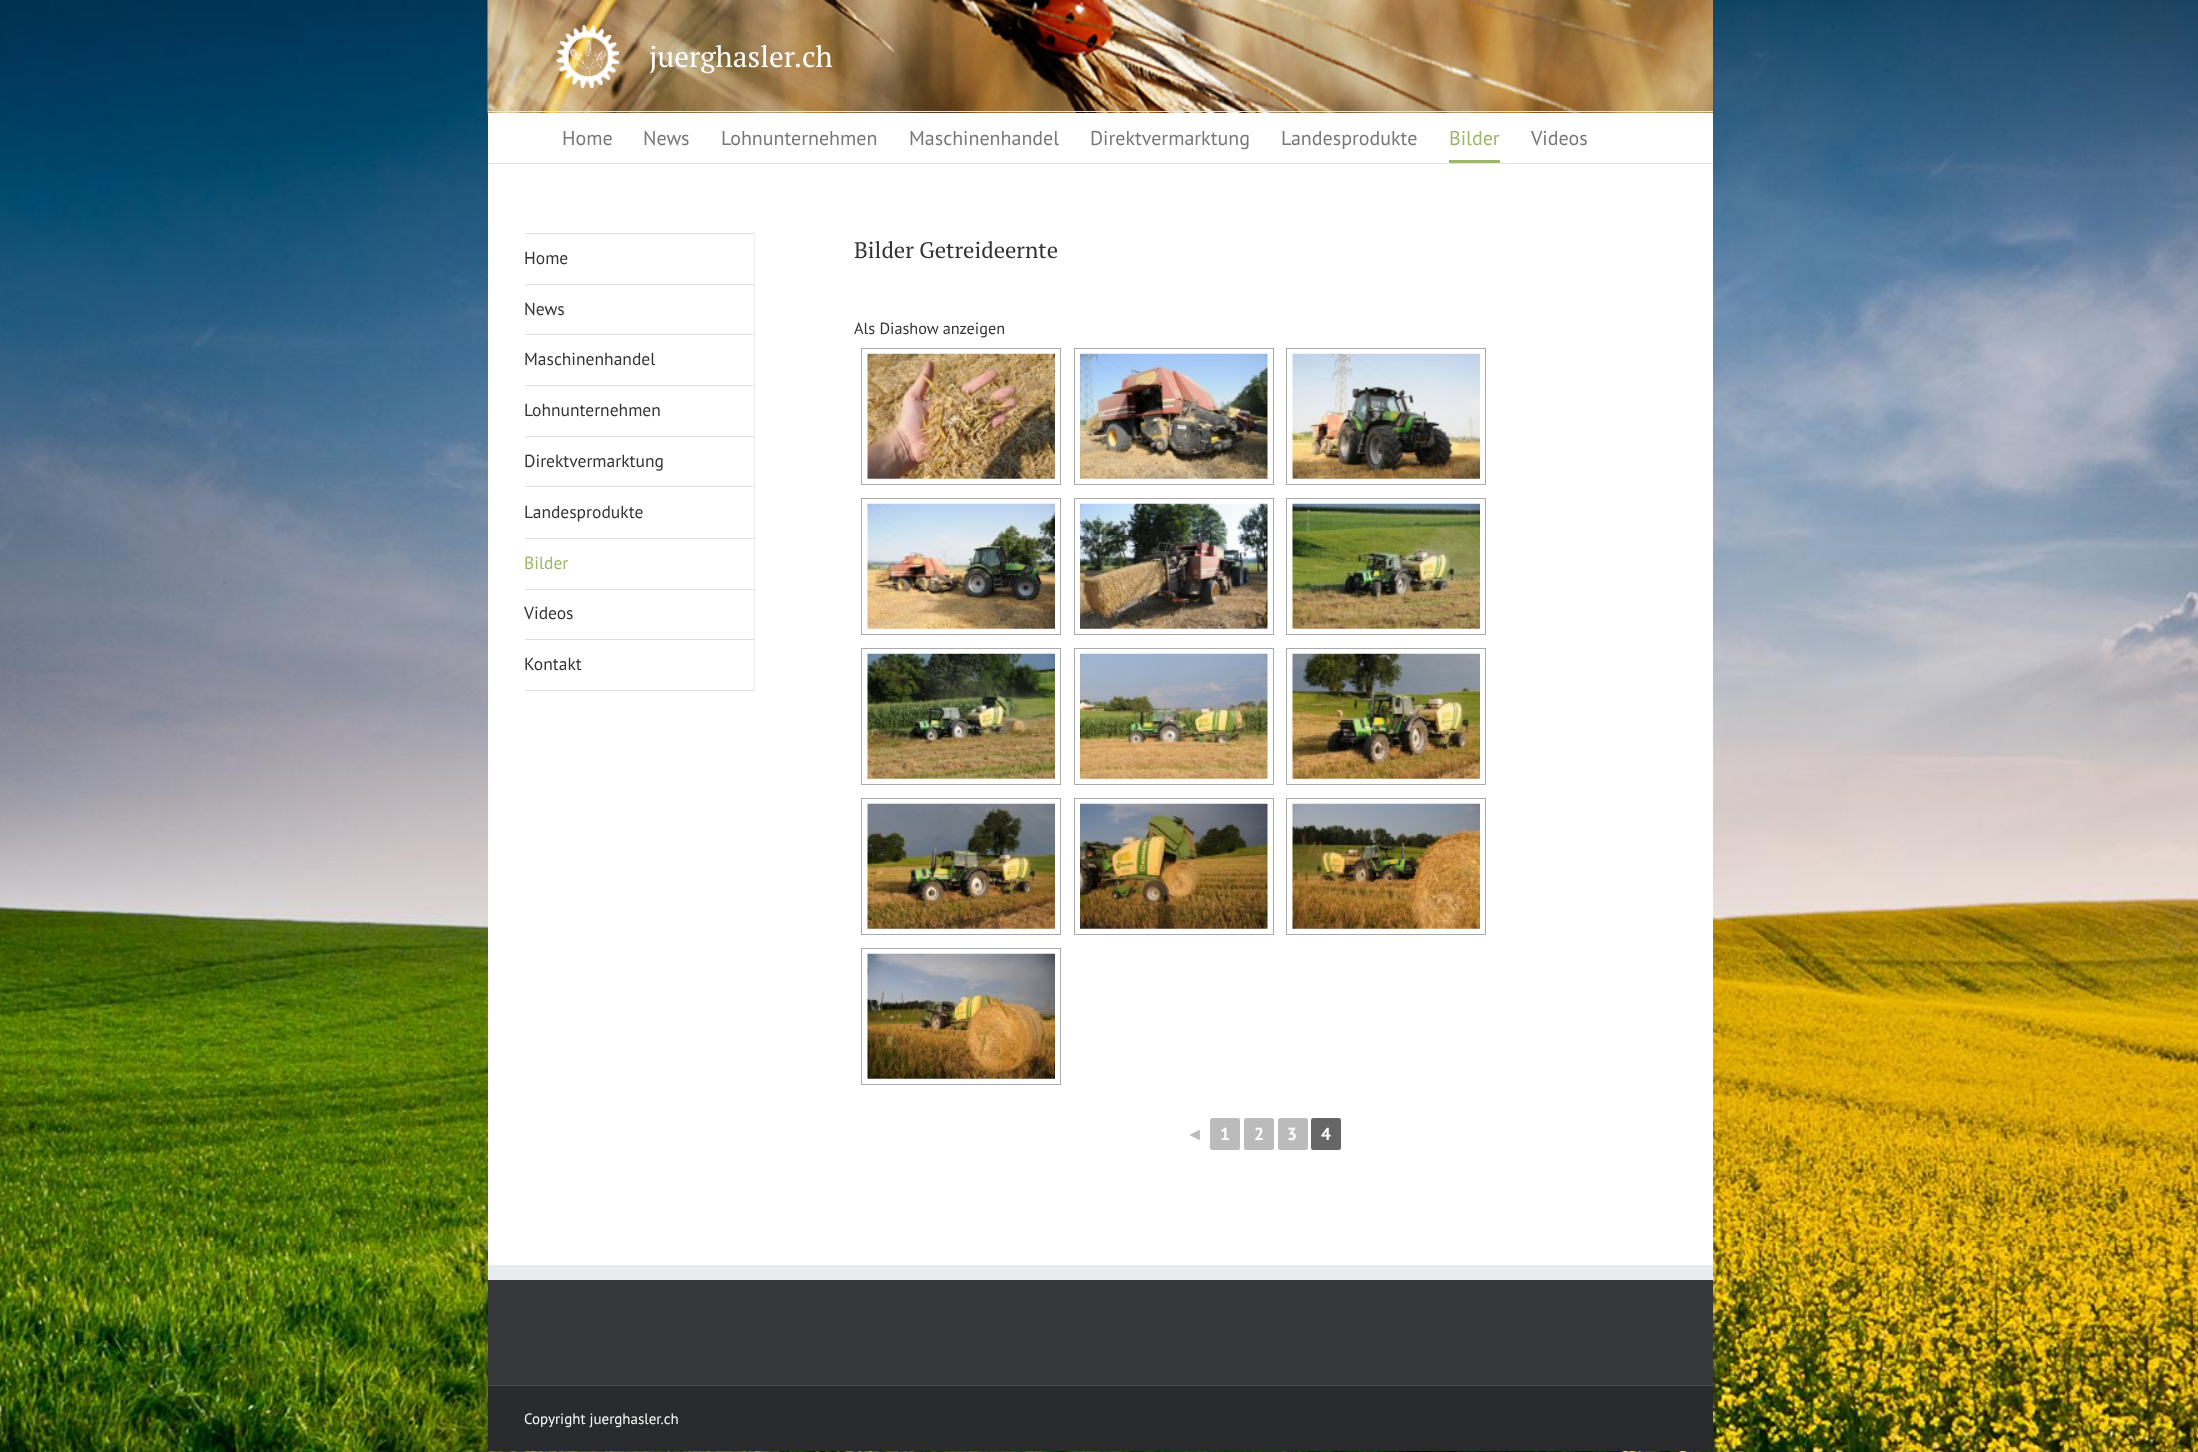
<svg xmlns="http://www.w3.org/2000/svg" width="2198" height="1452">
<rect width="100%" height="100%" fill="#fff"/>
<image x="0" y="0" width="2198" height="1452" href="media/1.png"/>
<rect x="488" y="113" width="1225" height="1152" fill="#fff"/>
<image x="487" y="0" width="1226" height="113" href="media/2.png"/>
<rect x="488" y="111" width="1225" height="1" fill="#e5e5e5"/>
<image x="556" y="25" width="63" height="63" href="media/3.png"/>
<text x="649" y="67" style="font-family:PT Serif;font-size:29.25px;fill:#fff">juerghasler.ch</text>
<rect x="488" y="163" width="1225" height="1" fill="#e5e5e5"/>
<text x="562" y="145" style="font-family:PT Sans;font-size:20px;fill:#777">Home</text>
<text x="643" y="145" style="font-family:PT Sans;font-size:20px;fill:#777">News</text>
<text x="721" y="145" style="font-family:PT Sans;font-size:20px;fill:#777">Lohnunternehmen</text>
<text x="909" y="145" style="font-family:PT Sans;font-size:20px;fill:#777">Maschinenhandel</text>
<text x="1090" y="145" style="font-family:PT Sans;font-size:20px;fill:#777">Direktvermarktung</text>
<text x="1281" y="145" style="font-family:PT Sans;font-size:20px;fill:#777">Landesprodukte</text>
<text x="1449" y="145" style="font-family:PT Sans;font-size:20px;fill:#9db668">Bilder</text>
<rect x="1449" y="160" width="51" height="3" fill="#9db668"/>
<text x="1531" y="145" style="font-family:PT Sans;font-size:20px;fill:#777">Videos</text>
<rect x="525" y="233" width="230" height="1" fill="#e0dede"/>
<rect x="754" y="233" width="1" height="458" fill="#ededed"/>
<rect x="525" y="284" width="229" height="1" fill="#e0dede"/>
<text x="524" y="264" style="font-family:PT Sans;font-size:17.5px;fill:#333">Home</text>
<rect x="525" y="334" width="229" height="1" fill="#e0dede"/>
<text x="524" y="315" style="font-family:PT Sans;font-size:17.5px;fill:#333">News</text>
<rect x="525" y="385" width="229" height="1" fill="#e0dede"/>
<text x="524" y="365" style="font-family:PT Sans;font-size:17.5px;fill:#333">Maschinenhandel</text>
<rect x="525" y="436" width="229" height="1" fill="#e0dede"/>
<text x="524" y="416" style="font-family:PT Sans;font-size:17.5px;fill:#333">Lohnunternehmen</text>
<rect x="525" y="486" width="229" height="1" fill="#e0dede"/>
<text x="524" y="467" style="font-family:PT Sans;font-size:17.5px;fill:#333">Direktvermarktung</text>
<rect x="525" y="538" width="229" height="1" fill="#e0dede"/>
<text x="524" y="518" style="font-family:PT Sans;font-size:17.5px;fill:#333">Landesprodukte</text>
<rect x="525" y="589" width="229" height="1" fill="#e0dede"/>
<text x="524" y="569" style="font-family:PT Sans;font-size:17.5px;fill:#9db668">Bilder</text>
<rect x="525" y="639" width="229" height="1" fill="#e0dede"/>
<text x="524" y="619" style="font-family:PT Sans;font-size:17.5px;fill:#333">Videos</text>
<rect x="525" y="690" width="229" height="1" fill="#e0dede"/>
<text x="524" y="670" style="font-family:PT Sans;font-size:17.5px;fill:#333">Kontakt</text>
<text x="854" y="258" style="font-family:PT Serif;font-size:22.5px;fill:#333">Bilder Getreideernte</text>
<text x="854" y="334" style="font-family:PT Sans;font-size:16.25px;fill:#333">Als Diashow anzeigen</text>
<rect x="861.5" y="348.5" width="199" height="136" fill="none" stroke="#a9a9a9"/>
<image x="867" y="353" width="188" height="126" href="media/4.png"/>
<rect x="1074.5" y="348.5" width="199" height="136" fill="none" stroke="#a9a9a9"/>
<image x="1080" y="353" width="188" height="126" href="media/5.png"/>
<rect x="1286.5" y="348.5" width="199" height="136" fill="none" stroke="#a9a9a9"/>
<image x="1292" y="353" width="188" height="126" href="media/6.png"/>
<rect x="861.5" y="498.5" width="199" height="136" fill="none" stroke="#a9a9a9"/>
<image x="867" y="503" width="188" height="126" href="media/7.png"/>
<rect x="1074.5" y="498.5" width="199" height="136" fill="none" stroke="#a9a9a9"/>
<image x="1080" y="503" width="188" height="126" href="media/8.png"/>
<rect x="1286.5" y="498.5" width="199" height="136" fill="none" stroke="#a9a9a9"/>
<image x="1292" y="503" width="188" height="126" href="media/9.png"/>
<rect x="861.5" y="648.5" width="199" height="136" fill="none" stroke="#a9a9a9"/>
<image x="867" y="653" width="188" height="126" href="media/10.png"/>
<rect x="1074.5" y="648.5" width="199" height="136" fill="none" stroke="#a9a9a9"/>
<image x="1080" y="653" width="188" height="126" href="media/11.png"/>
<rect x="1286.5" y="648.5" width="199" height="136" fill="none" stroke="#a9a9a9"/>
<image x="1292" y="653" width="188" height="126" href="media/12.png"/>
<rect x="861.5" y="798.5" width="199" height="136" fill="none" stroke="#a9a9a9"/>
<image x="867" y="803" width="188" height="126" href="media/13.png"/>
<rect x="1074.5" y="798.5" width="199" height="136" fill="none" stroke="#a9a9a9"/>
<image x="1080" y="803" width="188" height="126" href="media/14.png"/>
<rect x="1286.5" y="798.5" width="199" height="136" fill="none" stroke="#a9a9a9"/>
<image x="1292" y="803" width="188" height="126" href="media/15.png"/>
<rect x="861.5" y="948.5" width="199" height="136" fill="none" stroke="#a9a9a9"/>
<image x="867" y="953" width="188" height="126" href="media/16.png"/>
<text x="1186" y="1140" style="font-family:Liberation Sans;font-size:17.5px;font-weight:bold;fill:#bbb">◄</text>
<rect x="1210" y="1118" width="30" height="32" rx="2.5" fill="#bbb"/>
<text x="1220" y="1140" style="font-family:PT Sans;font-size:17.5px;font-weight:bold;fill:#fff">1</text>
<rect x="1244" y="1118" width="30" height="32" rx="2.5" fill="#bbb"/>
<text x="1254" y="1140" style="font-family:PT Sans;font-size:17.5px;font-weight:bold;fill:#fff">2</text>
<rect x="1278" y="1118" width="30" height="32" rx="2.5" fill="#bbb"/>
<text x="1287" y="1140" style="font-family:PT Sans;font-size:17.5px;font-weight:bold;fill:#fff">3</text>
<rect x="1311" y="1118" width="30" height="32" rx="2.5" fill="#666"/>
<text x="1321" y="1140" style="font-family:PT Sans;font-size:17.5px;font-weight:bold;fill:#fff">4</text>
<rect x="488" y="1280" width="1225" height="105" fill="#363839"/>
<rect x="488" y="1265" width="1225" height="15" fill="#e9eaee"/>
<rect x="488" y="1386" width="1225" height="65" fill="#282a2b"/>
<rect x="488" y="1385" width="1225" height="1" fill="#4b4c4d"/>
<text x="524" y="1424" style="font-family:PT Sans;font-size:15px;fill:#fff">Copyright juerghasler.ch</text>
</svg>
